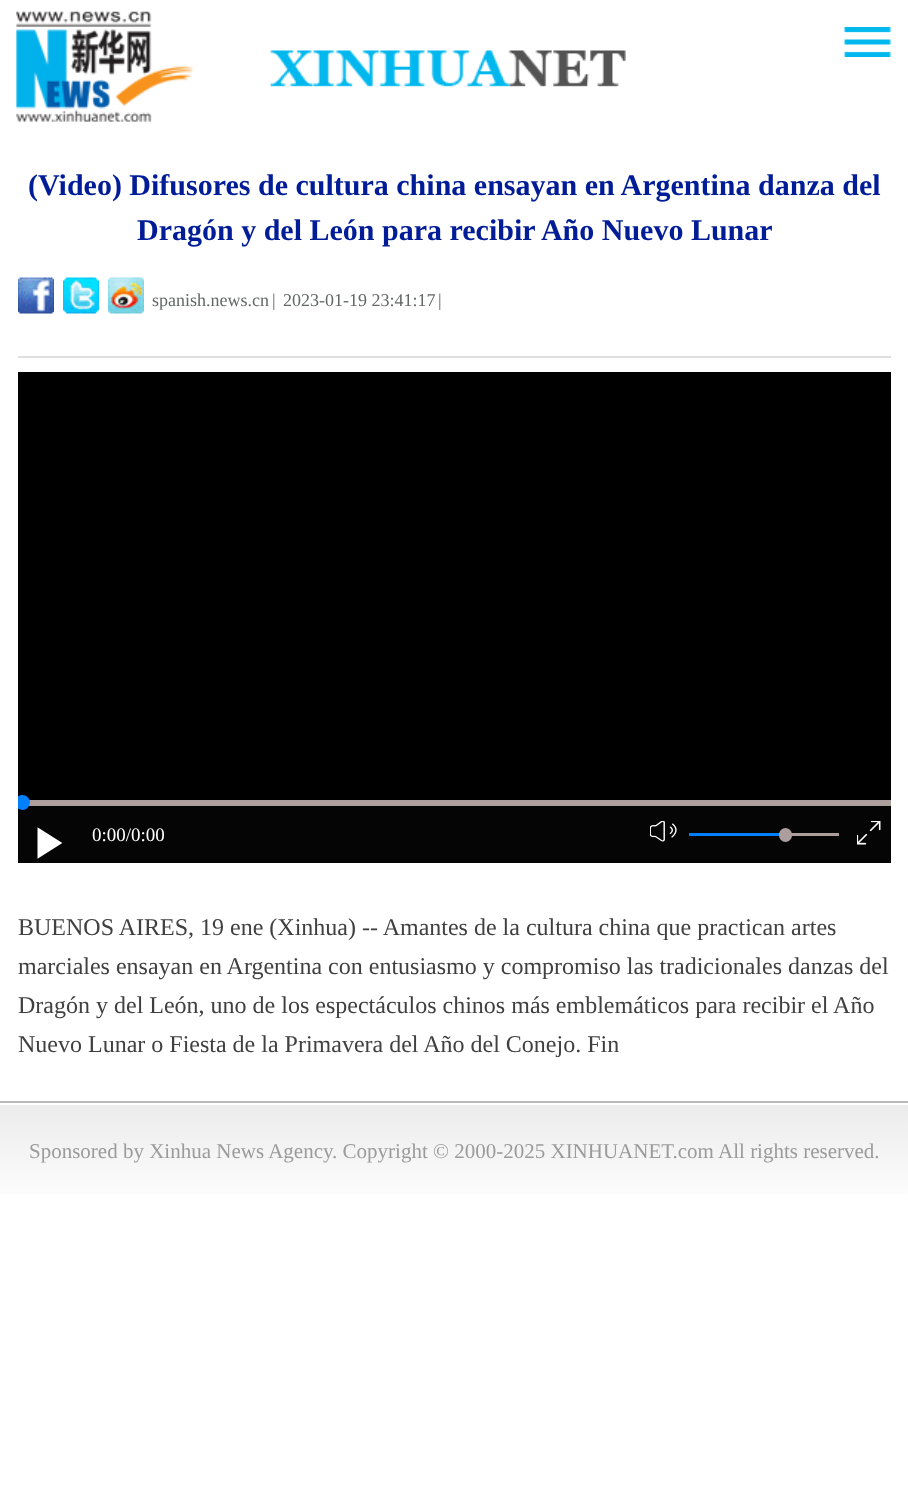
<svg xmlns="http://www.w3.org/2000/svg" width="908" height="1497">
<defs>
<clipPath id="clip1"><rect x="18" y="372" width="873" height="491"/></clipPath>
<linearGradient id="g1" gradientUnits="userSpaceOnUse" x1="455" y1="1103" x2="455" y2="1194"><stop offset="0" stop-color="#ebebeb"/><stop offset="1" stop-color="#fcfcfc"/></linearGradient>
</defs>
<rect width="100%" height="100%" fill="#fff"/>
<image x="16" y="11" width="610" height="111" href="media/1.png"/>
<image x="844" y="27" width="47" height="30" href="media/2.png"/>
<text x="28" y="195" style="font-family:Liberation Serif;font-size:30px;font-weight:bold;fill:#001c96">(Video) Difusores de cultura china ensayan en Argentina danza del</text>
<text x="137" y="240" style="font-family:Liberation Serif;font-size:30px;font-weight:bold;fill:#001c96">Dragón y del León para recibir Año Nuevo Lunar</text>
<rect x="18" y="356" width="873" height="2" fill="#dfdfdf"/>
<image x="18" y="277" width="36" height="37" href="media/3.png"/>
<image x="63" y="277" width="36" height="37" href="media/4.png"/>
<image x="108" y="277" width="36" height="37" href="media/5.png"/>
<text x="152" y="306" style="font-family:Liberation Serif;font-size:18px;fill:#636767">spanish.news.cn</text>
<text x="272" y="306" style="font-family:Liberation Serif;font-size:18px;fill:#636767">|</text>
<text x="283" y="306" style="font-family:Liberation Serif;font-size:18px;fill:#636767">2023-01-19 23:41:17</text>
<text x="438" y="306" style="font-family:Liberation Serif;font-size:18px;fill:#636767">|</text>
<rect x="18" y="372" width="873" height="428" fill="#000"/>
<rect x="18" y="806" width="873" height="57" fill="#050505"/>
<rect x="29" y="800" width="862" height="6" fill="#ad9e9e"/>
<g clip-path="url(#clip1)">
<circle cx="22.5" cy="802.5" r="7.5" fill="#007fff"/>
</g>
<path d="M38.5 829v28l22-14z" fill="#fff" stroke="#fff" stroke-width="2"/>
<text x="92" y="841" style="font-family:Liberation Serif;font-size:19px;fill:#fff">0:00/0:00</text>
<image x="650" y="821" width="27" height="21" href="media/6.png"/>
<rect x="779" y="833" width="60" height="3" fill="#ad9e9e"/>
<rect x="689" y="833" width="90" height="3" fill="#007fff"/>
<rect x="779" y="828" width="13" height="14" rx="6.5" fill="#ad9e9e"/>
<image x="857" y="821" width="24" height="24" href="media/7.png"/>
<text x="18" y="935" style="font-family:Liberation Serif;font-size:24px;fill:#404040">BUENOS AIRES, 19 ene (Xinhua) -- Amantes de la cultura china que practican artes</text>
<text x="18" y="974" style="font-family:Liberation Serif;font-size:24px;fill:#404040">marciales ensayan en Argentina con entusiasmo y compromiso las tradicionales danzas del</text>
<text x="18" y="1013" style="font-family:Liberation Serif;font-size:24px;fill:#404040">Dragón y del León, uno de los espectáculos chinos más emblemáticos para recibir el Año</text>
<text x="18" y="1052" style="font-family:Liberation Serif;font-size:24px;fill:#404040">Nuevo Lunar o Fiesta de la Primavera del Año del Conejo. Fin</text>
<rect y="1105" width="908" height="89" fill="url(#g1)"/>
<rect y="1101" width="908" height="2" fill="#bababa"/>
<text x="29" y="1158" style="font-family:Liberation Serif;font-size:21px;fill:#9b9b9b">Sponsored by Xinhua News Agency. Copyright © 2000-2025 XINHUANET.com All rights reserved.</text>
</svg>
